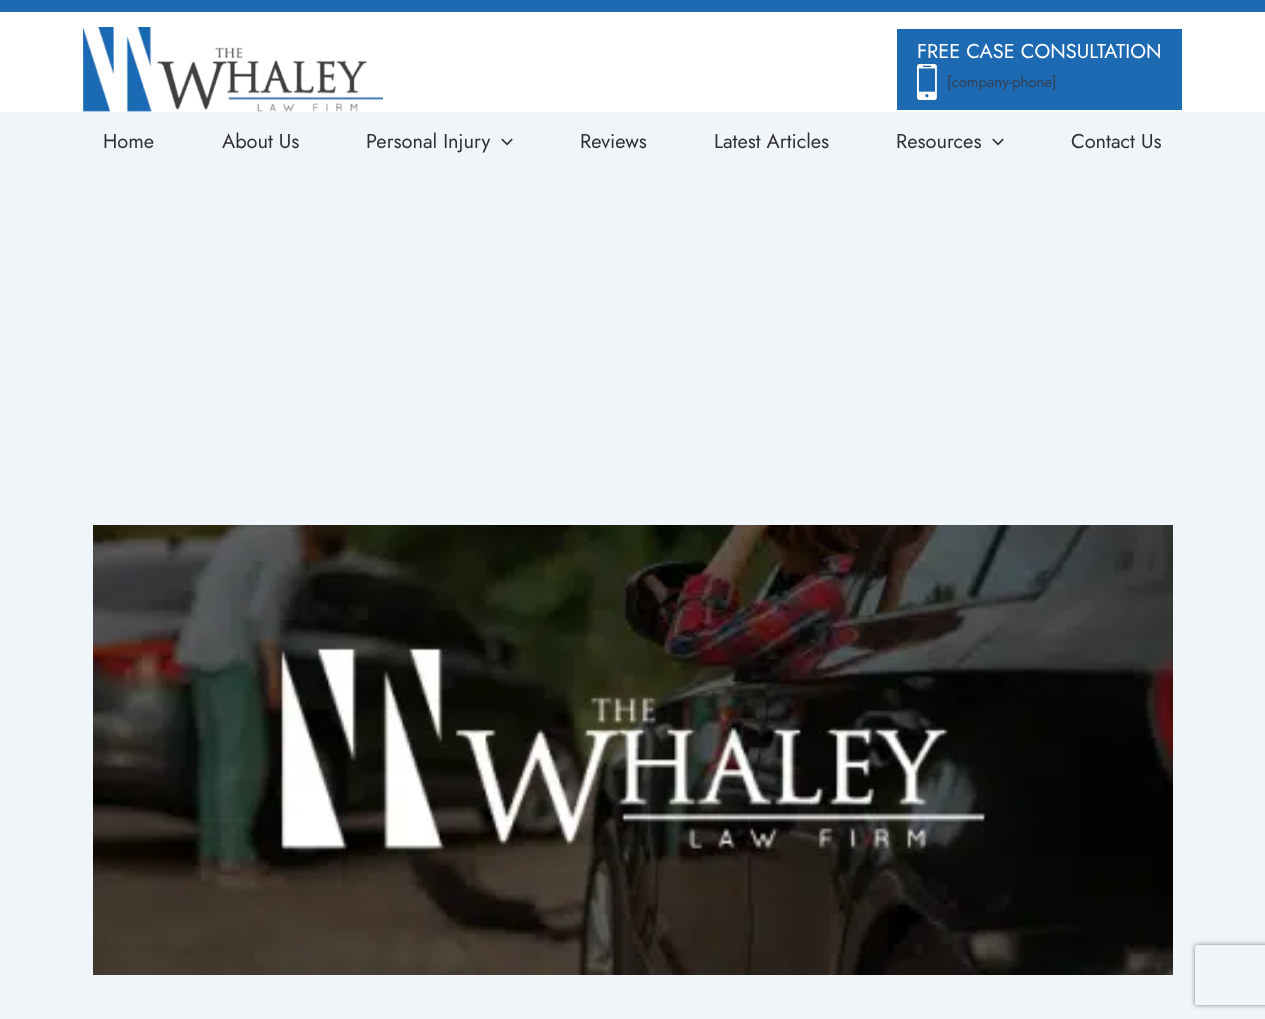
<svg xmlns="http://www.w3.org/2000/svg" width="1265" height="1019">
<defs>
<clipPath id="clip1"><path d="M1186 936h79v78h-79zm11 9h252c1 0 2 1 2 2v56c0 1-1 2-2 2h-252c-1 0-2-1-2-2v-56c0-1 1-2 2-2z" clip-rule="evenodd"/></clipPath>
</defs>
<rect width="100%" height="100%" fill="#f0f5fa"/>
<rect y="12" width="1265" height="100" fill="#fff"/>
<rect width="1265" height="12" fill="#1d69b2"/>
<image x="83" y="27" width="300" height="85" href="media/1.png"/>
<rect x="897" y="29" width="285" height="81" fill="#1d69b2"/>
<text x="917" y="58" style="font-family:Jost;font-size:20px;fill:#fff">FREE CASE CONSULTATION</text>
<image x="917" y="64" width="20" height="36" href="media/2.png"/>
<text x="947" y="87" style="font-family:Jost;font-size:15px;fill:#334155">[company-phone]</text>
<text x="103" y="148" style="font-family:Jost;font-size:20px;fill:#312f2f">Home</text>
<text x="222" y="148" style="font-family:Jost;font-size:20px;fill:#312f2f">About Us</text>
<text x="366" y="148" style="font-family:Jost;font-size:20px;fill:#312f2f">Personal Injury</text>
<image x="501" y="138" width="12" height="8" href="media/3.png"/>
<text x="580" y="148" style="font-family:Jost;font-size:20px;fill:#312f2f">Reviews</text>
<text x="714" y="148" style="font-family:Jost;font-size:20px;fill:#312f2f">Latest Articles</text>
<text x="896" y="148" style="font-family:Jost;font-size:20px;fill:#312f2f">Resources</text>
<image x="992" y="138" width="12" height="8" href="media/3.png"/>
<text x="1071" y="148" style="font-family:Jost;font-size:20px;fill:#312f2f">Contact Us</text>
<image x="93" y="525" width="1080" height="450" href="media/4.png"/>
<g clip-path="url(#clip1)">
<rect x="1195" y="945" width="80" height="60" rx="2" fill="#808080" filter="blur(2.5px)"/>
</g>
</svg>
